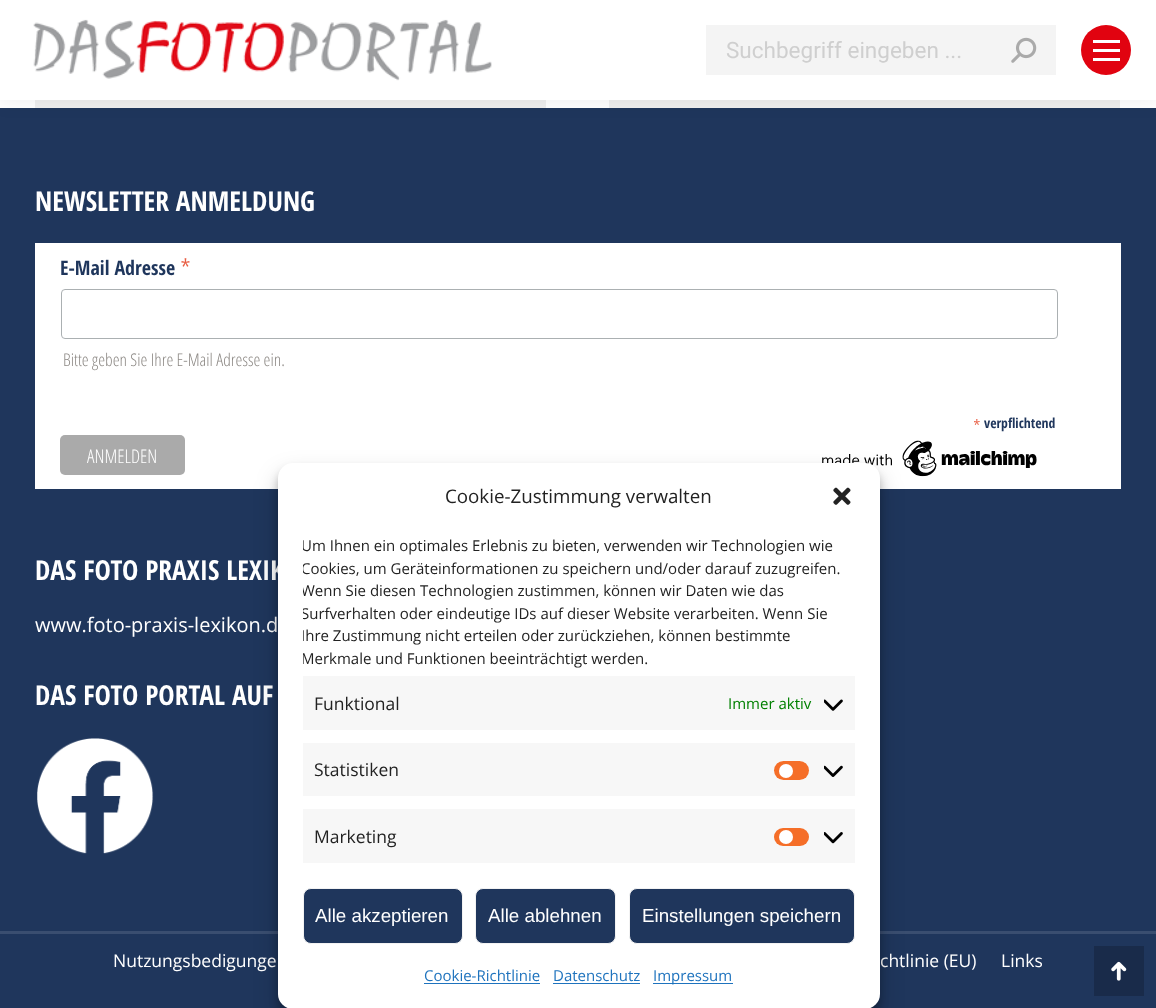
<svg xmlns="http://www.w3.org/2000/svg" width="1156" height="1008">
<defs>
<clipPath id="clip1"><rect x="303" y="535" width="552" height="328"/></clipPath>
</defs>
<rect width="100%" height="100%" fill="#fff"/>
<rect x="35" y="100" width="511" height="8" fill="#efefef"/>
<rect x="609" y="100" width="511" height="8" fill="#efefef"/>
<rect y="108" width="1156" height="900" fill="#1f365c"/>
<rect x="-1" y="-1" width="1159" height="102" fill="#00000012" filter="blur(9.5px)"/>
<rect width="1156" height="100" fill="#fff"/>
<image x="33" y="19" width="459" height="62" href="media/1.png"/>
<rect x="706" y="25" width="350" height="50" fill="#f4f4f4"/>
<text x="726" y="58" style="font-family:Roboto;font-size:22.5px;fill:#cfcfcf">Suchbegriff eingeben ...</text>
<image x="1011" y="37" width="26" height="26" href="media/2.png"/>
<circle cx="1106" cy="50" r="25" fill="#e10310"/>
<rect x="1093" y="40" width="27" height="3" fill="#fff"/>
<rect x="1093" y="49" width="27" height="3" fill="#fff"/>
<rect x="1093" y="58" width="27" height="3" fill="#fff"/>
<text x="35" y="211" style="font-family:Open Sans Condensed;font-size:27.5px;font-weight:bold;fill:#fff">NEWSLETTER ANMELDUNG</text>
<rect x="35" y="243" width="1086" height="246" fill="#fff"/>
<text x="60" y="275" style="font-family:Open Sans Condensed;font-size:20px;font-weight:bold;fill:#1f365c">E-Mail Adresse</text>
<text x="180" y="281" style="font-family:Open Sans Condensed;font-size:30px;font-weight:300;fill:#e85c41">*</text>
<rect x="61.5" y="289.5" width="996" height="49" rx="3.5" fill="none" stroke="#abb0b2"/>
<text x="63" y="366" style="font-family:Open Sans Condensed;font-size:17.5px;font-weight:300;fill:#8d8985">Bitte geben Sie Ihre E-Mail Adresse ein.</text>
<text x="973" y="435" style="font-family:Open Sans Condensed;font-size:21px;font-weight:300;fill:#e85c41">*</text>
<text x="984" y="428" style="font-family:Open Sans Condensed;font-size:13.75px;font-weight:bold;fill:#1f365c">verpflichtend</text>
<rect x="60" y="435" width="125" height="40" rx="5" fill="#aaa"/>
<text x="87" y="463" style="font-family:Open Sans Condensed;font-size:18.75px;font-weight:300;fill:#fff">ANMELDEN</text>
<image x="822" y="440" width="215" height="37" href="media/3.png"/>
<text x="35" y="580" style="font-family:Open Sans Condensed;font-size:27.5px;font-weight:bold;fill:#fff">DAS FOTO PRAXIS LEXIK</text>
<text x="35" y="632" style="font-family:Open Sans;font-size:20px;fill:#fff">www.foto-praxis-lexikon.d</text>
<text x="35" y="705" style="font-family:Open Sans Condensed;font-size:27.5px;font-weight:bold;fill:#fff">DAS FOTO PORTAL AUF</text>
<image x="37" y="738" width="117" height="116" href="media/4.png"/>
<rect y="931" width="1156" height="3" fill="#3a4e70"/>
<text x="113" y="967" style="font-family:Open Sans;font-size:17.5px;fill:#fff">Nutzungsbedigunge</text>
<text x="880" y="967" style="font-family:Open Sans;font-size:17.5px;fill:#fff">chtlinie (EU)</text>
<text x="1001" y="967" style="font-family:Open Sans;font-size:17.5px;fill:#fff">Links</text>
<rect x="1094" y="946" width="50" height="50" fill="#192b4a"/>
<image x="1111" y="961" width="16" height="20" href="media/5.png"/>
<rect x="278" y="470" width="602" height="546" rx="15" fill="#0000003b" filter="blur(4px)"/>
<rect x="278" y="475" width="602" height="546" rx="15" fill="#00000030" filter="blur(12.5px)"/>
<rect x="278" y="463" width="602" height="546" rx="15" fill="#fff"/>
<text x="445" y="503" style="font-family:Open Sans;font-size:18.75px;fill:#222">Cookie-Zustimmung verwalten</text>
<image x="833" y="487" width="18" height="18" href="media/6.png"/>
<g clip-path="url(#clip1)">
<text x="301" y="551" style="font-family:Open Sans;font-size:15px;fill:#222">Um Ihnen ein optimales Erlebnis zu bieten, verwenden wir Technologien wie</text>
<text x="301" y="574" style="font-family:Open Sans;font-size:15px;fill:#222">Cookies, um Geräteinformationen zu speichern und/oder darauf zuzugreifen.</text>
<text x="301" y="596" style="font-family:Open Sans;font-size:15px;fill:#222">Wenn Sie diesen Technologien zustimmen, können wir Daten wie das</text>
<text x="301" y="619" style="font-family:Open Sans;font-size:15px;fill:#222">Surfverhalten oder eindeutige IDs auf dieser Website verarbeiten. Wenn Sie</text>
<text x="301" y="641" style="font-family:Open Sans;font-size:15px;fill:#222">Ihre Zustimmung nicht erteilen oder zurückziehen, können bestimmte</text>
<text x="301" y="664" style="font-family:Open Sans;font-size:15px;fill:#222">Merkmale und Funktionen beeinträchtigt werden.</text>
</g>
<rect x="303" y="676" width="552" height="54" fill="#f7f7f7"/>
<text x="314" y="710" style="font-family:Open Sans;font-size:17.5px;fill:#222">Funktional</text>
<text x="728" y="709" style="font-family:Open Sans;font-size:15px;fill:#008000">Immer aktiv</text>
<image x="824" y="699" width="19" height="12" href="media/7.png"/>
<rect x="303" y="743" width="552" height="53" fill="#f7f7f7"/>
<text x="314" y="776" style="font-family:Open Sans;font-size:17.5px;fill:#222">Statistiken</text>
<rect x="774" y="761" width="35" height="19" rx="9.5" fill="#f56e28"/>
<circle cx="786" cy="771" r="7" fill="#fff"/>
<image x="824" y="765" width="19" height="12" href="media/8.png"/>
<rect x="303" y="809" width="552" height="54" fill="#f7f7f7"/>
<text x="314" y="843" style="font-family:Open Sans;font-size:17.5px;fill:#222">Marketing</text>
<rect x="774" y="828" width="35" height="18" rx="9" fill="#f56e28"/>
<circle cx="786" cy="837" r="7" fill="#fff"/>
<image x="824" y="832" width="19" height="12" href="media/9.png"/>
<rect x="303.5" y="888.5" width="159" height="55" rx="7.5" fill="#1f365c" stroke="#f2f2f2"/>
<text x="315" y="922" style="font-family:Liberation Sans;font-size:18.75px;fill:#fff">Alle akzeptieren</text>
<rect x="475.5" y="888.5" width="140" height="55" rx="7.5" fill="#1f365c" stroke="#f2f2f2"/>
<text x="488" y="922" style="font-family:Liberation Sans;font-size:18.75px;fill:#fff">Alle ablehnen</text>
<rect x="629.5" y="888.5" width="225" height="55" rx="7.5" fill="#1f365c" stroke="#f2f2f2"/>
<text x="642" y="922" style="font-family:Liberation Sans;font-size:18.75px;fill:#fff">Einstellungen speichern</text>
<text x="424" y="981" style="font-family:Open Sans;font-size:15px;fill:#1e73be">Cookie-Richtlinie</text>
<rect x="424" y="983" width="116" height="1" fill="#1e73be"/>
<text x="553" y="981" style="font-family:Open Sans;font-size:15px;fill:#1e73be">Datenschutz</text>
<rect x="553" y="983" width="87" height="1" fill="#1e73be"/>
<rect x="653" y="983" width="80" height="1" fill="#1e73be"/>
<text x="653" y="981" style="font-family:Open Sans;font-size:15px;fill:#1e73be">Impressum</text>
</svg>
